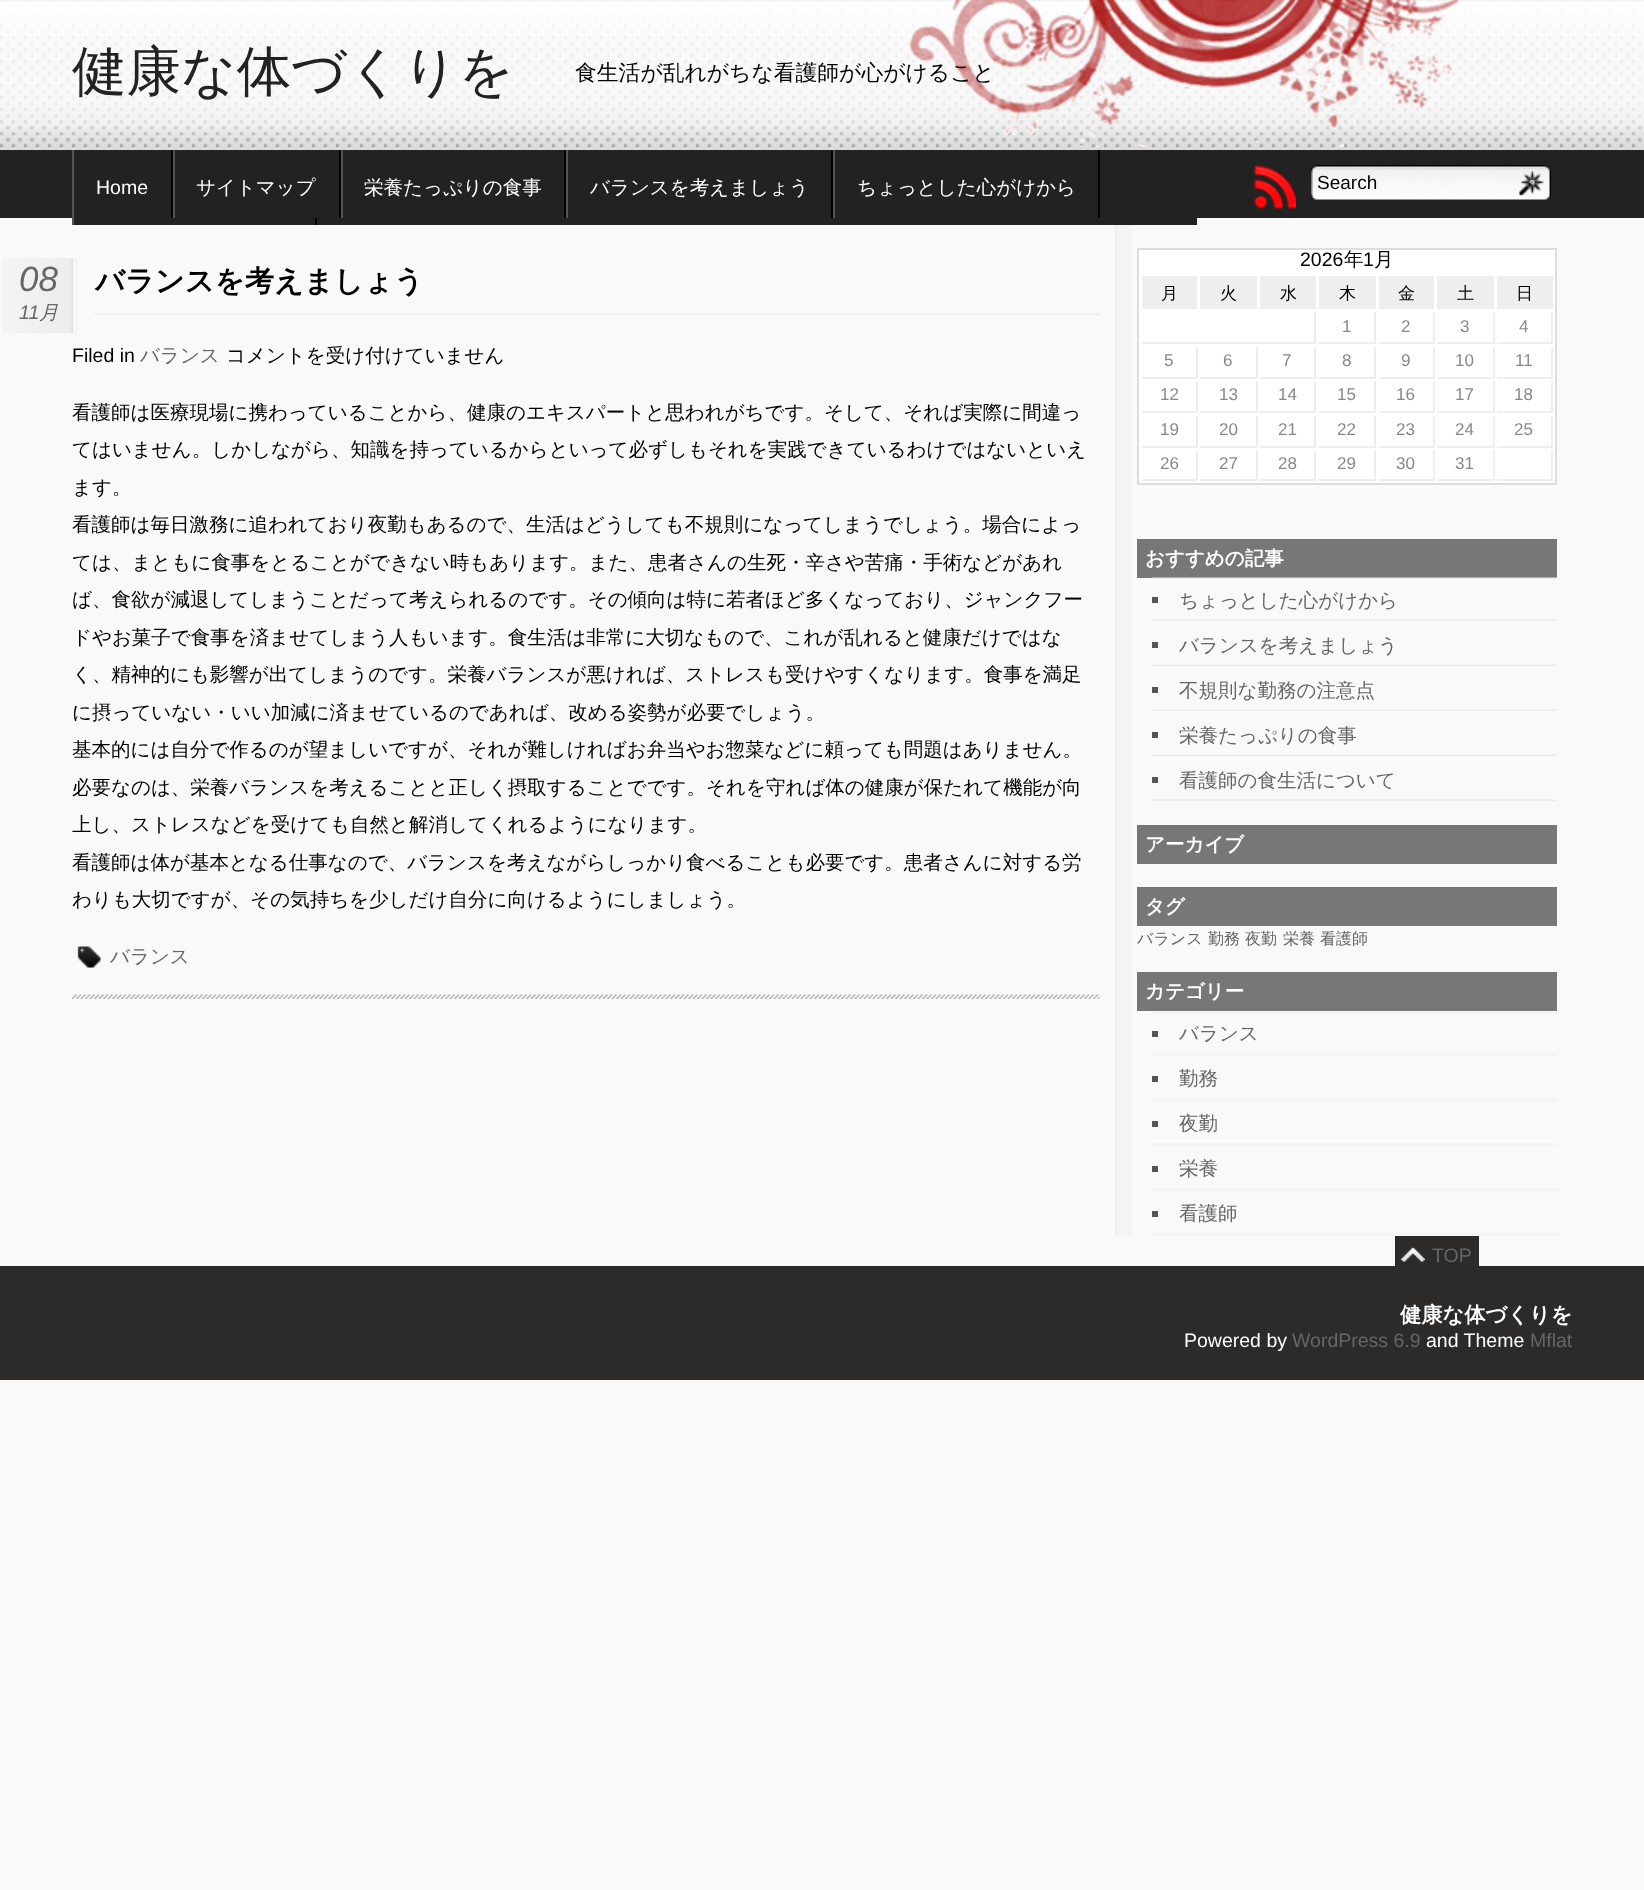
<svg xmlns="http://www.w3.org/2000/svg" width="1644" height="1890">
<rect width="100%" height="100%" fill="#f9f9f9"/>
<image x="0" y="0" width="1644" height="150" href="media/1.png"/>
<text x="72" y="90" style="font-family:WenQuanYi Zen Hei;font-size:54.5px;font-weight:500;fill:#222">健康な体づくりを</text>
<image x="909" y="0" width="551" height="147" href="media/2.png"/>
<text x="575" y="80" style="font-family:WenQuanYi Zen Hei;font-size:21.8px;font-weight:500;fill:#000">食生活が乱れがちな看護師が心がけること</text>
<rect y="150" width="1644" height="68" fill="#222"/>
<rect x="74" y="218" width="1123" height="7" fill="#222"/>
<rect x="171" y="150" width="2" height="68" fill="#000"/>
<rect x="72" y="150" width="2" height="75" fill="#555"/>
<text x="96" y="194" style="font-family:Liberation Sans;font-size:19.5px;fill:#fff">Home</text>
<rect x="339" y="150" width="2" height="68" fill="#000"/>
<rect x="173" y="150" width="2" height="68" fill="#555"/>
<text x="196" y="194" style="font-family:WenQuanYi Zen Hei;font-size:19.5px;font-weight:500;fill:#fff">サイトマップ</text>
<rect x="564" y="150" width="2" height="68" fill="#000"/>
<rect x="341" y="150" width="2" height="68" fill="#555"/>
<text x="364" y="194" style="font-family:WenQuanYi Zen Hei;font-size:19.5px;font-weight:500;fill:#fff">栄養たっぷりの食事</text>
<rect x="831" y="150" width="2" height="68" fill="#000"/>
<rect x="566" y="150" width="2" height="68" fill="#555"/>
<text x="590" y="194" style="font-family:WenQuanYi Zen Hei;font-size:19.5px;font-weight:500;fill:#fff">バランスを考えましょう</text>
<rect x="1098" y="150" width="2" height="68" fill="#000"/>
<rect x="833" y="150" width="2" height="68" fill="#555"/>
<text x="857" y="194" style="font-family:WenQuanYi Zen Hei;font-size:19.5px;font-weight:500;fill:#fff">ちょっとした心がけから</text>
<rect x="315" y="218" width="2" height="7" fill="#000"/>
<image x="1253" y="164" width="43" height="45" href="media/3.png"/>
<image x="1311" y="165" width="240" height="35" href="media/4.png"/>
<text x="1317" y="189" style="font-family:Liberation Sans;font-size:19px;fill:#000">Search</text>
<image x="1115" y="225" width="17" height="1011" href="media/5.png"/>
<rect x="76" y="258" width="1" height="75" fill="#eee"/>
<image x="2" y="258" width="74" height="75" href="media/6.png"/>
<text x="19" y="291" style="font-family:Liberation Sans;font-size:35px;font-style:italic;fill:#666">08</text>
<text x="19" y="319" style="font-family:Liberation Sans;font-size:19.5px;font-style:italic;fill:#666">11</text>
<text x="39" y="319" style="font-family:WenQuanYi Zen Hei;font-size:19.5px;font-weight:500;font-style:italic;fill:#666">月</text>
<image x="94" y="313" width="1006" height="2" href="media/7.png"/>
<text x="95" y="291" style="font-family:WenQuanYi Zen Hei;font-size:29.25px;font-weight:bold;fill:#000">バランスを考えましょう</text>
<text x="72" y="362" style="font-family:Liberation Sans;font-size:19.5px;fill:#000">Filed in</text>
<text x="140" y="362" style="font-family:WenQuanYi Zen Hei;font-size:19.5px;font-weight:500;fill:#666">バランス</text>
<text x="226" y="362" style="font-family:WenQuanYi Zen Hei;font-size:19.5px;font-weight:500;fill:#000">コメントを受け付けていません</text>
<text x="72" y="419" style="font-family:WenQuanYi Zen Hei;font-size:19.5px;font-weight:500;fill:#000">看護師は医療現場に携わっていることから、健康のエキスパートと思われがちです。そして、それば実際に間違っ</text>
<text x="72" y="456" style="font-family:WenQuanYi Zen Hei;font-size:19.5px;font-weight:500;fill:#000">てはいません。しかしながら、知識を持っているからといって必ずしもそれを実践できているわけではないといえ</text>
<text x="72" y="494" style="font-family:WenQuanYi Zen Hei;font-size:19.5px;font-weight:500;fill:#000">ます。</text>
<text x="72" y="531" style="font-family:WenQuanYi Zen Hei;font-size:19.5px;font-weight:500;fill:#000">看護師は毎日激務に追われており夜勤もあるので、生活はどうしても不規則になってしまうでしょう。場合によっ</text>
<text x="72" y="569" style="font-family:WenQuanYi Zen Hei;font-size:19.5px;font-weight:500;fill:#000">ては、まともに食事をとることができない時もあります。また、患者さんの生死・辛さや苦痛・手術などがあれ</text>
<text x="72" y="606" style="font-family:WenQuanYi Zen Hei;font-size:19.5px;font-weight:500;fill:#000">ば、食欲が減退してしまうことだって考えられるのです。その傾向は特に若者ほど多くなっており、ジャンクフー</text>
<text x="72" y="644" style="font-family:WenQuanYi Zen Hei;font-size:19.5px;font-weight:500;fill:#000">ドやお菓子で食事を済ませてしまう人もいます。食生活は非常に大切なもので、これが乱れると健康だけではな</text>
<text x="72" y="681" style="font-family:WenQuanYi Zen Hei;font-size:19.5px;font-weight:500;fill:#000">く、精神的にも影響が出てしまうのです。栄養バランスが悪ければ、ストレスも受けやすくなります。食事を満足</text>
<text x="72" y="719" style="font-family:WenQuanYi Zen Hei;font-size:19.5px;font-weight:500;fill:#000">に摂っていない・いい加減に済ませているのであれば、改める姿勢が必要でしょう。</text>
<text x="72" y="756" style="font-family:WenQuanYi Zen Hei;font-size:19.5px;font-weight:500;fill:#000">基本的には自分で作るのが望ましいですが、それが難しければお弁当やお惣菜などに頼っても問題はありません。</text>
<text x="72" y="794" style="font-family:WenQuanYi Zen Hei;font-size:19.5px;font-weight:500;fill:#000">必要なのは、栄養バランスを考えることと正しく摂取することでです。それを守れば体の健康が保たれて機能が向</text>
<text x="72" y="831" style="font-family:WenQuanYi Zen Hei;font-size:19.5px;font-weight:500;fill:#000">上し、ストレスなどを受けても自然と解消してくれるようになります。</text>
<text x="72" y="869" style="font-family:WenQuanYi Zen Hei;font-size:19.5px;font-weight:500;fill:#000">看護師は体が基本となる仕事なので、バランスを考えながらしっかり食べることも必要です。患者さんに対する労</text>
<text x="72" y="906" style="font-family:WenQuanYi Zen Hei;font-size:19.5px;font-weight:500;fill:#000">わりも大切ですが、その気持ちを少しだけ自分に向けるようにしましょう。</text>
<image x="77" y="946" width="24" height="22" href="media/8.png"/>
<text x="110" y="963" style="font-family:WenQuanYi Zen Hei;font-size:19.5px;font-weight:500;fill:#666">バランス</text>
<image x="72" y="994" width="1028" height="5" href="media/9.png"/>
<rect x="1138" y="249" width="418" height="235" fill="#fff" stroke="#ddd" stroke-width="2"/>
<text x="1300" y="266" style="font-family:Liberation Sans;font-size:19.5px;fill:#000">2026</text>
<text x="1344" y="266" style="font-family:WenQuanYi Zen Hei;font-size:19.5px;font-weight:500;fill:#000">年</text>
<text x="1363" y="266" style="font-family:Liberation Sans;font-size:19.5px;fill:#000">1</text>
<text x="1374" y="266" style="font-family:WenQuanYi Zen Hei;font-size:19.5px;font-weight:500;fill:#000">月</text>
<rect x="1142" y="276" width="55" height="33" fill="#eee"/>
<text x="1161" y="299" style="font-family:WenQuanYi Zen Hei;font-size:17px;font-weight:500;fill:#000">月</text>
<rect x="1200" y="276" width="57" height="33" fill="#eee"/>
<text x="1220" y="299" style="font-family:WenQuanYi Zen Hei;font-size:17px;font-weight:500;fill:#000">火</text>
<rect x="1260" y="276" width="56" height="33" fill="#eee"/>
<text x="1280" y="299" style="font-family:WenQuanYi Zen Hei;font-size:17px;font-weight:500;fill:#000">水</text>
<rect x="1319" y="276" width="57" height="33" fill="#eee"/>
<text x="1339" y="299" style="font-family:WenQuanYi Zen Hei;font-size:17px;font-weight:500;fill:#000">木</text>
<rect x="1379" y="276" width="55" height="33" fill="#eee"/>
<text x="1398" y="299" style="font-family:WenQuanYi Zen Hei;font-size:17px;font-weight:500;fill:#000">金</text>
<rect x="1437" y="276" width="57" height="33" fill="#eee"/>
<text x="1457" y="299" style="font-family:WenQuanYi Zen Hei;font-size:17px;font-weight:500;fill:#000">土</text>
<rect x="1497" y="276" width="56" height="33" fill="#eee"/>
<text x="1516" y="299" style="font-family:WenQuanYi Zen Hei;font-size:17px;font-weight:500;fill:#000">日</text>
<rect x="1314" y="312" width="2" height="32" fill="#eee"/>
<rect x="1142" y="342" width="174" height="2" fill="#eee"/>
<rect x="1374" y="312" width="2" height="32" fill="#eee"/>
<rect x="1319" y="342" width="57" height="2" fill="#eee"/>
<text x="1342" y="332" style="font-family:Liberation Sans;font-size:17px;fill:#888">1</text>
<rect x="1433" y="312" width="2" height="32" fill="#eee"/>
<rect x="1379" y="342" width="55" height="2" fill="#eee"/>
<text x="1401" y="332" style="font-family:Liberation Sans;font-size:17px;fill:#888">2</text>
<rect x="1493" y="312" width="2" height="32" fill="#eee"/>
<rect x="1437" y="342" width="57" height="2" fill="#eee"/>
<text x="1460" y="332" style="font-family:Liberation Sans;font-size:17px;fill:#888">3</text>
<rect x="1551" y="312" width="2" height="32" fill="#eee"/>
<rect x="1497" y="342" width="56" height="2" fill="#eee"/>
<text x="1519" y="332" style="font-family:Liberation Sans;font-size:17px;fill:#888">4</text>
<rect x="1196" y="347" width="2" height="31" fill="#eee"/>
<rect x="1142" y="377" width="55" height="2" fill="#eee"/>
<text x="1164" y="366" style="font-family:Liberation Sans;font-size:17px;fill:#888">5</text>
<rect x="1256" y="347" width="2" height="31" fill="#eee"/>
<rect x="1200" y="377" width="57" height="2" fill="#eee"/>
<text x="1223" y="366" style="font-family:Liberation Sans;font-size:17px;fill:#888">6</text>
<rect x="1314" y="347" width="2" height="31" fill="#eee"/>
<rect x="1260" y="377" width="56" height="2" fill="#eee"/>
<text x="1282" y="366" style="font-family:Liberation Sans;font-size:17px;fill:#888">7</text>
<rect x="1374" y="347" width="2" height="31" fill="#eee"/>
<rect x="1319" y="377" width="57" height="2" fill="#eee"/>
<text x="1342" y="366" style="font-family:Liberation Sans;font-size:17px;fill:#888">8</text>
<rect x="1433" y="347" width="2" height="31" fill="#eee"/>
<rect x="1379" y="377" width="55" height="2" fill="#eee"/>
<text x="1401" y="366" style="font-family:Liberation Sans;font-size:17px;fill:#888">9</text>
<rect x="1493" y="347" width="2" height="31" fill="#eee"/>
<rect x="1437" y="377" width="57" height="2" fill="#eee"/>
<text x="1455" y="366" style="font-family:Liberation Sans;font-size:17px;fill:#888">10</text>
<rect x="1551" y="347" width="2" height="31" fill="#eee"/>
<rect x="1497" y="377" width="56" height="2" fill="#eee"/>
<text x="1515" y="366" style="font-family:Liberation Sans;font-size:17px;fill:#888">11</text>
<rect x="1196" y="381" width="2" height="32" fill="#eee"/>
<rect x="1142" y="411" width="55" height="2" fill="#eee"/>
<text x="1160" y="400" style="font-family:Liberation Sans;font-size:17px;fill:#888">12</text>
<rect x="1256" y="381" width="2" height="32" fill="#eee"/>
<rect x="1200" y="411" width="57" height="2" fill="#eee"/>
<text x="1219" y="400" style="font-family:Liberation Sans;font-size:17px;fill:#888">13</text>
<rect x="1314" y="381" width="2" height="32" fill="#eee"/>
<rect x="1260" y="411" width="56" height="2" fill="#eee"/>
<text x="1278" y="400" style="font-family:Liberation Sans;font-size:17px;fill:#888">14</text>
<rect x="1374" y="381" width="2" height="32" fill="#eee"/>
<rect x="1319" y="411" width="57" height="2" fill="#eee"/>
<text x="1337" y="400" style="font-family:Liberation Sans;font-size:17px;fill:#888">15</text>
<rect x="1433" y="381" width="2" height="32" fill="#eee"/>
<rect x="1379" y="411" width="55" height="2" fill="#eee"/>
<text x="1396" y="400" style="font-family:Liberation Sans;font-size:17px;fill:#888">16</text>
<rect x="1493" y="381" width="2" height="32" fill="#eee"/>
<rect x="1437" y="411" width="57" height="2" fill="#eee"/>
<text x="1455" y="400" style="font-family:Liberation Sans;font-size:17px;fill:#888">17</text>
<rect x="1551" y="381" width="2" height="32" fill="#eee"/>
<rect x="1497" y="411" width="56" height="2" fill="#eee"/>
<text x="1514" y="400" style="font-family:Liberation Sans;font-size:17px;fill:#888">18</text>
<rect x="1196" y="416" width="2" height="31" fill="#eee"/>
<rect x="1142" y="446" width="55" height="2" fill="#eee"/>
<text x="1160" y="435" style="font-family:Liberation Sans;font-size:17px;fill:#888">19</text>
<rect x="1256" y="416" width="2" height="31" fill="#eee"/>
<rect x="1200" y="446" width="57" height="2" fill="#eee"/>
<text x="1219" y="435" style="font-family:Liberation Sans;font-size:17px;fill:#888">20</text>
<rect x="1314" y="416" width="2" height="31" fill="#eee"/>
<rect x="1260" y="446" width="56" height="2" fill="#eee"/>
<text x="1278" y="435" style="font-family:Liberation Sans;font-size:17px;fill:#888">21</text>
<rect x="1374" y="416" width="2" height="31" fill="#eee"/>
<rect x="1319" y="446" width="57" height="2" fill="#eee"/>
<text x="1337" y="435" style="font-family:Liberation Sans;font-size:17px;fill:#888">22</text>
<rect x="1433" y="416" width="2" height="31" fill="#eee"/>
<rect x="1379" y="446" width="55" height="2" fill="#eee"/>
<text x="1396" y="435" style="font-family:Liberation Sans;font-size:17px;fill:#888">23</text>
<rect x="1493" y="416" width="2" height="31" fill="#eee"/>
<rect x="1437" y="446" width="57" height="2" fill="#eee"/>
<text x="1455" y="435" style="font-family:Liberation Sans;font-size:17px;fill:#888">24</text>
<rect x="1551" y="416" width="2" height="31" fill="#eee"/>
<rect x="1497" y="446" width="56" height="2" fill="#eee"/>
<text x="1514" y="435" style="font-family:Liberation Sans;font-size:17px;fill:#888">25</text>
<rect x="1196" y="450" width="2" height="30" fill="#eee"/>
<rect x="1142" y="479" width="55" height="2" fill="#eee"/>
<text x="1160" y="469" style="font-family:Liberation Sans;font-size:17px;fill:#888">26</text>
<rect x="1256" y="450" width="2" height="30" fill="#eee"/>
<rect x="1200" y="479" width="57" height="2" fill="#eee"/>
<text x="1219" y="469" style="font-family:Liberation Sans;font-size:17px;fill:#888">27</text>
<rect x="1314" y="450" width="2" height="30" fill="#eee"/>
<rect x="1260" y="479" width="56" height="2" fill="#eee"/>
<text x="1278" y="469" style="font-family:Liberation Sans;font-size:17px;fill:#888">28</text>
<rect x="1374" y="450" width="2" height="30" fill="#eee"/>
<rect x="1319" y="479" width="57" height="2" fill="#eee"/>
<text x="1337" y="469" style="font-family:Liberation Sans;font-size:17px;fill:#888">29</text>
<rect x="1433" y="450" width="2" height="30" fill="#eee"/>
<rect x="1379" y="479" width="55" height="2" fill="#eee"/>
<text x="1396" y="469" style="font-family:Liberation Sans;font-size:17px;fill:#888">30</text>
<rect x="1493" y="450" width="2" height="30" fill="#eee"/>
<rect x="1437" y="479" width="57" height="2" fill="#eee"/>
<text x="1455" y="469" style="font-family:Liberation Sans;font-size:17px;fill:#888">31</text>
<rect x="1551" y="450" width="2" height="30" fill="#eee"/>
<rect x="1497" y="479" width="56" height="2" fill="#eee"/>
<rect x="1137" y="539" width="420" height="39" fill="#777"/>
<text x="1145" y="565" style="font-family:WenQuanYi Zen Hei;font-size:19.5px;font-weight:bold;fill:#fff">おすすめの記事</text>
<image x="1152" y="577" width="405" height="2" href="media/10.png"/>
<image x="1152" y="619" width="405" height="2" href="media/11.png"/>
<rect x="1152" y="597" width="6" height="6" fill="#555"/>
<text x="1179" y="607" style="font-family:WenQuanYi Zen Hei;font-size:19.5px;font-weight:500;fill:#666">ちょっとした心がけから</text>
<image x="1152" y="664" width="405" height="2" href="media/11.png"/>
<rect x="1152" y="642" width="6" height="6" fill="#555"/>
<text x="1179" y="652" style="font-family:WenQuanYi Zen Hei;font-size:19.5px;font-weight:500;fill:#666">バランスを考えましょう</text>
<image x="1152" y="709" width="405" height="2" href="media/11.png"/>
<rect x="1152" y="687" width="6" height="6" fill="#555"/>
<text x="1179" y="697" style="font-family:WenQuanYi Zen Hei;font-size:19.5px;font-weight:500;fill:#666">不規則な勤務の注意点</text>
<image x="1152" y="754" width="405" height="2" href="media/11.png"/>
<rect x="1152" y="732" width="6" height="6" fill="#555"/>
<text x="1179" y="742" style="font-family:WenQuanYi Zen Hei;font-size:19.5px;font-weight:500;fill:#666">栄養たっぷりの食事</text>
<image x="1152" y="799" width="405" height="2" href="media/11.png"/>
<rect x="1152" y="777" width="6" height="6" fill="#555"/>
<text x="1179" y="787" style="font-family:WenQuanYi Zen Hei;font-size:19.5px;font-weight:500;fill:#666">看護師の食生活について</text>
<rect x="1137" y="825" width="420" height="39" fill="#777"/>
<text x="1145" y="851" style="font-family:WenQuanYi Zen Hei;font-size:19.5px;font-weight:bold;fill:#fff">アーカイブ</text>
<rect x="1137" y="887" width="420" height="39" fill="#777"/>
<text x="1145" y="913" style="font-family:WenQuanYi Zen Hei;font-size:19.5px;font-weight:bold;fill:#fff">タグ</text>
<text x="1137" y="944" style="font-family:WenQuanYi Zen Hei;font-size:16px;font-weight:500;fill:#666">バランス</text>
<text x="1208" y="944" style="font-family:WenQuanYi Zen Hei;font-size:16px;font-weight:500;fill:#666">勤務</text>
<text x="1245" y="944" style="font-family:WenQuanYi Zen Hei;font-size:16px;font-weight:500;fill:#666">夜勤</text>
<text x="1283" y="944" style="font-family:WenQuanYi Zen Hei;font-size:16px;font-weight:500;fill:#666">栄養</text>
<text x="1320" y="944" style="font-family:WenQuanYi Zen Hei;font-size:16px;font-weight:500;fill:#666">看護師</text>
<rect x="1137" y="972" width="420" height="39" fill="#777"/>
<text x="1145" y="998" style="font-family:WenQuanYi Zen Hei;font-size:19.5px;font-weight:bold;fill:#fff">カテゴリー</text>
<rect x="1152" y="1011" width="405" height="3" fill="#f4f4f4"/>
<rect x="1152" y="1053" width="405" height="3" fill="#f4f4f4"/>
<rect x="1152" y="1031" width="6" height="6" fill="#555"/>
<text x="1179" y="1040" style="font-family:WenQuanYi Zen Hei;font-size:19.5px;font-weight:500;fill:#666">バランス</text>
<rect x="1152" y="1098" width="405" height="3" fill="#f4f4f4"/>
<rect x="1152" y="1076" width="6" height="6" fill="#555"/>
<text x="1179" y="1085" style="font-family:WenQuanYi Zen Hei;font-size:19.5px;font-weight:500;fill:#666">勤務</text>
<rect x="1152" y="1143" width="405" height="3" fill="#f4f4f4"/>
<rect x="1152" y="1121" width="6" height="6" fill="#555"/>
<text x="1179" y="1130" style="font-family:WenQuanYi Zen Hei;font-size:19.5px;font-weight:500;fill:#666">夜勤</text>
<rect x="1152" y="1188" width="405" height="3" fill="#f4f4f4"/>
<rect x="1152" y="1166" width="6" height="6" fill="#555"/>
<text x="1179" y="1175" style="font-family:WenQuanYi Zen Hei;font-size:19.5px;font-weight:500;fill:#666">栄養</text>
<rect x="1152" y="1233" width="405" height="3" fill="#f4f4f4"/>
<rect x="1152" y="1211" width="6" height="6" fill="#555"/>
<text x="1179" y="1220" style="font-family:WenQuanYi Zen Hei;font-size:19.5px;font-weight:500;fill:#666">看護師</text>
<rect x="1395" y="1236" width="84" height="30" fill="#2c2b2a"/>
<image x="1401" y="1247" width="24" height="15" href="media/12.png"/>
<text x="1432" y="1262" style="font-family:Liberation Sans;font-size:19.5px;fill:#666">TOP</text>
<rect y="1266" width="1644" height="114" fill="#2c2b2a"/>
<text x="1400" y="1322" style="font-family:WenQuanYi Zen Hei;font-size:21.25px;font-weight:bold;fill:#fff">健康な体づくりを</text>
<text x="1184" y="1347" style="font-family:Liberation Sans;font-size:19.5px;fill:#fff">Powered by</text>
<text x="1292" y="1347" style="font-family:Liberation Sans;font-size:19.5px;fill:#666">WordPress 6.9</text>
<text x="1426" y="1347" style="font-family:Liberation Sans;font-size:19.5px;fill:#fff">and Theme</text>
<text x="1530" y="1347" style="font-family:Liberation Sans;font-size:19.5px;fill:#666">Mflat</text>
</svg>
